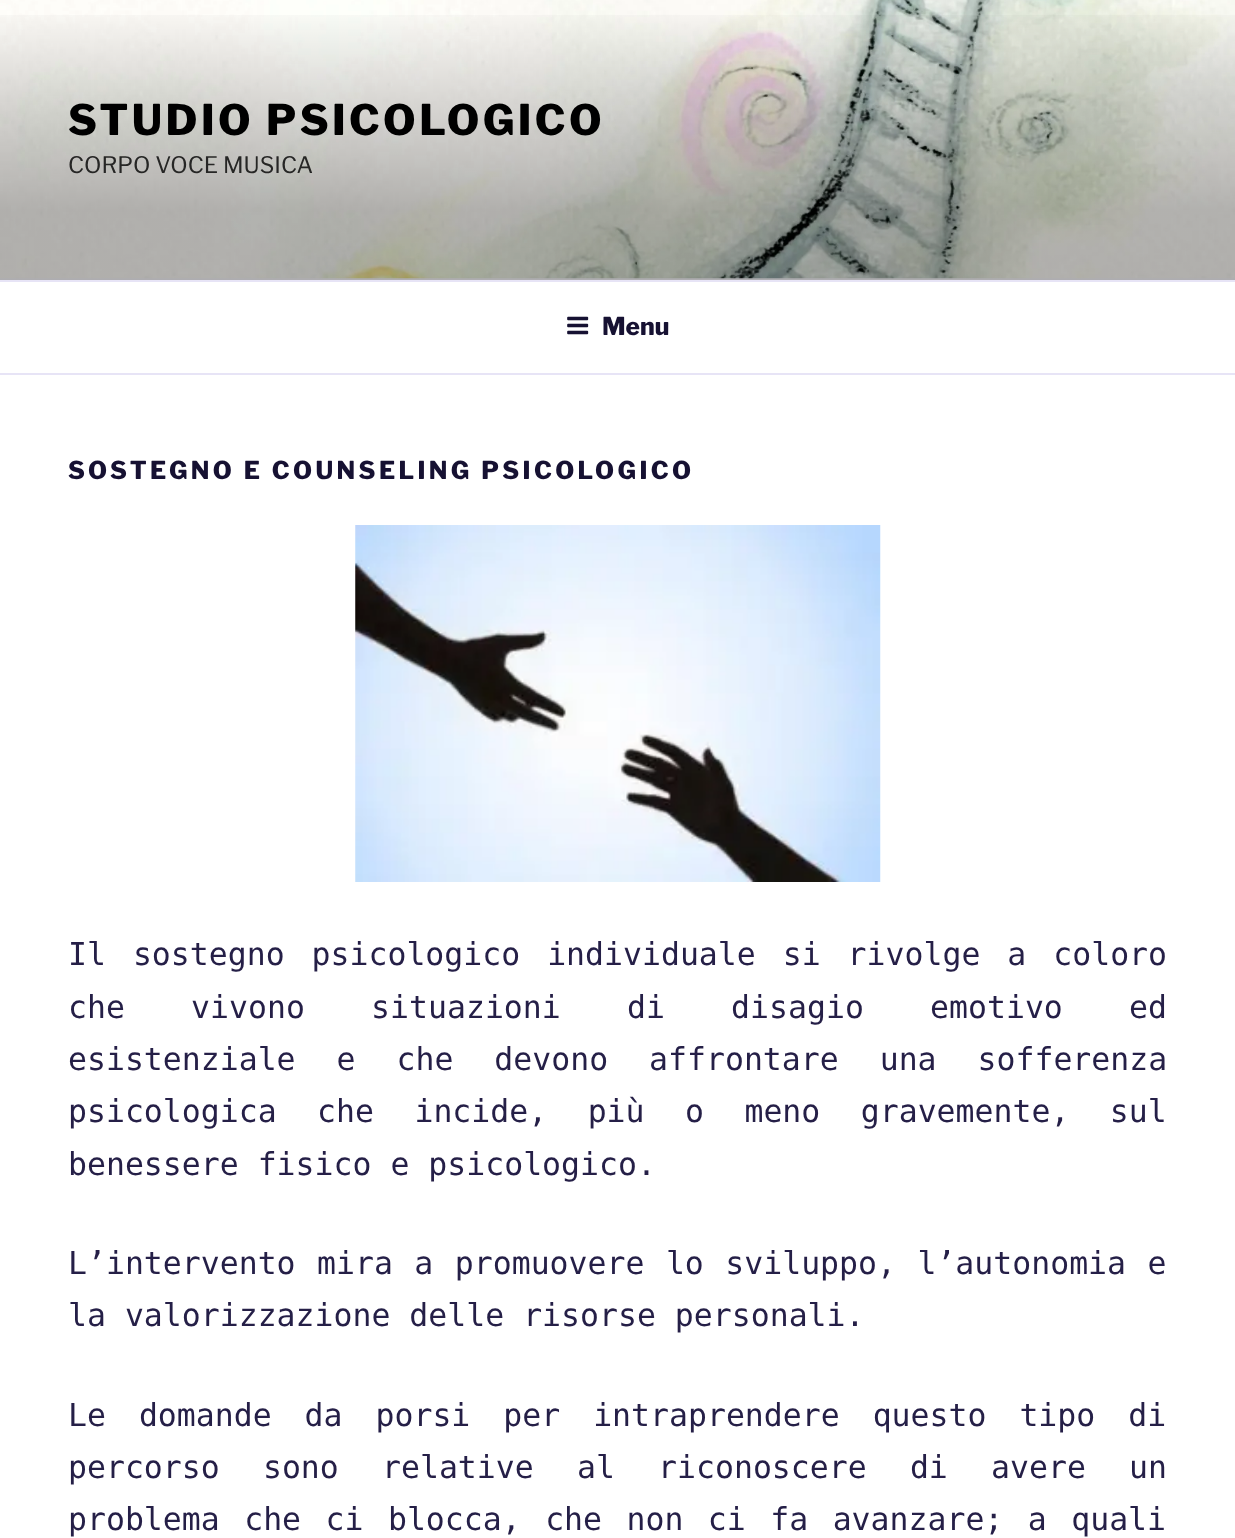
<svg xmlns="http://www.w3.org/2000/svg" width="1235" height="1538">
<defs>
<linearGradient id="g1" gradientUnits="userSpaceOnUse" x1="618" y1="0" x2="618" y2="280"><stop offset="0" stop-color="#000" stop-opacity="0"/><stop offset="0.75" stop-color="#000" stop-opacity="0.3"/><stop offset="1" stop-color="#000" stop-opacity="0.3"/></linearGradient>
</defs>
<rect width="100%" height="100%" fill="#fff"/>
<rect y="278" width="1235" height="2" fill="#f8f7fc"/>
<image x="0" y="0" width="1235" height="279" href="media/1.png"/>
<rect y="15" width="1235" height="265" fill="url(#g1)"/>
<text x="68" y="135" style="font-family:Libre Franklin;font-size:42px;font-weight:800;letter-spacing:3.4px;fill:#000">STUDIO PSICOLOGICO</text>
<text x="68" y="173" style="font-family:Libre Franklin;font-size:22.75px;fill:#262625">CORPO VOCE MUSICA</text>
<rect y="280" width="1235" height="2" fill="#e7e4f6"/>
<rect y="373" width="1235" height="2" fill="#e7e4f6"/>
<image x="567" y="316" width="22" height="19" href="media/2.png"/>
<text x="602" y="335" style="font-family:Libre Franklin;font-size:24.5px;font-weight:800;fill:#161132">Menu</text>
<text x="68" y="479" style="font-family:Libre Franklin;font-size:24.5px;font-weight:800;letter-spacing:3.4px;fill:#161132">SOSTEGNO E COUNSELING PSICOLOGICO</text>
<image x="355" y="525" width="526" height="357" href="media/3.png"/>
<text x="68" y="965" word-spacing="8" style="font-family:DejaVu Sans Mono;font-size:31.5px;fill:#251f47">Il sostegno psicologico individuale si rivolge a coloro</text>
<text x="68" y="1018" word-spacing="47.25" style="font-family:DejaVu Sans Mono;font-size:31.5px;fill:#251f47">che vivono situazioni di disagio emotivo ed</text>
<text x="68" y="1070" word-spacing="22" style="font-family:DejaVu Sans Mono;font-size:31.5px;fill:#251f47">esistenziale e che devono affrontare una sofferenza</text>
<text x="68" y="1122" word-spacing="21.5" style="font-family:DejaVu Sans Mono;font-size:31.5px;fill:#251f47">psicologica che incide, più o meno gravemente, sul</text>
<text x="68" y="1175" style="font-family:DejaVu Sans Mono;font-size:31.5px;fill:#251f47">benessere fisico e psicologico.</text>
<text x="68" y="1274" word-spacing="2.5" style="font-family:DejaVu Sans Mono;font-size:31.5px;fill:#251f47">L’intervento mira a promuovere lo sviluppo, l’autonomia e</text>
<text x="68" y="1326" style="font-family:DejaVu Sans Mono;font-size:31.5px;fill:#251f47">la valorizzazione delle risorse personali.</text>
<text x="68" y="1426" word-spacing="14" style="font-family:DejaVu Sans Mono;font-size:31.5px;fill:#251f47">Le domande da porsi per intraprendere questo tipo di</text>
<text x="68" y="1478" word-spacing="24.25" style="font-family:DejaVu Sans Mono;font-size:31.5px;fill:#251f47">percorso sono relative al riconoscere di avere un</text>
<text x="68" y="1530" word-spacing="5.5" style="font-family:DejaVu Sans Mono;font-size:31.5px;fill:#251f47">problema che ci blocca, che non ci fa avanzare; a quali</text>
</svg>
